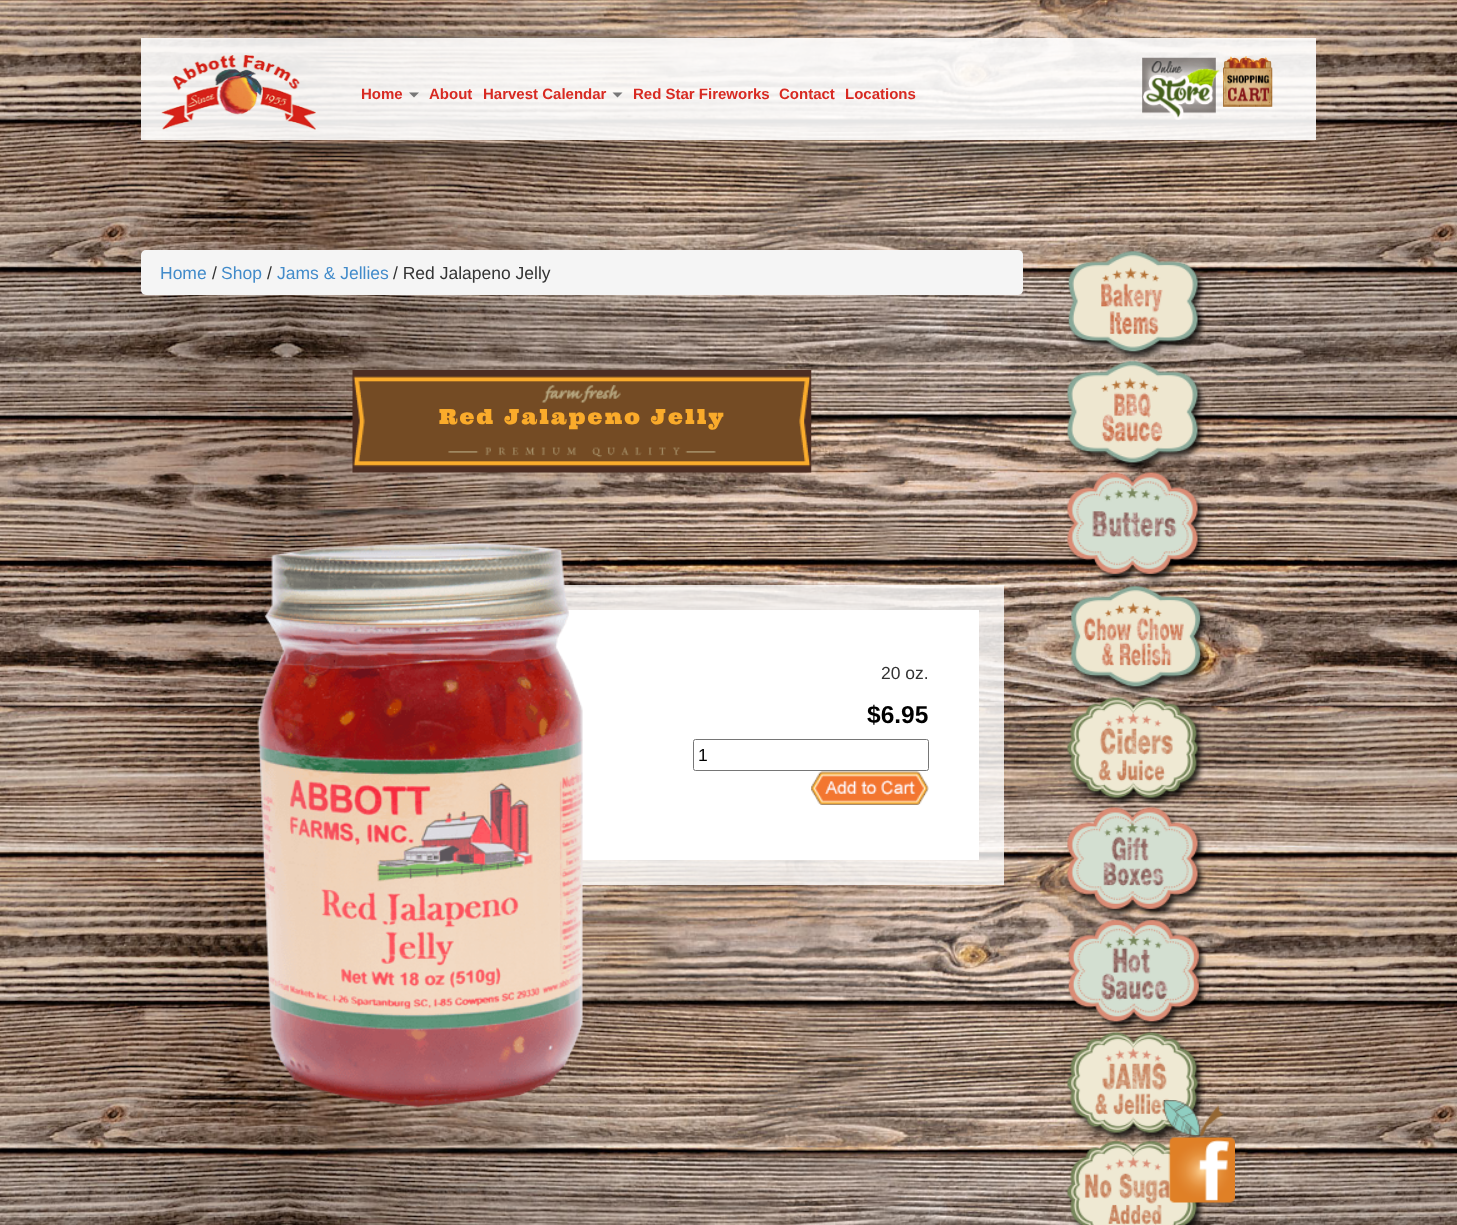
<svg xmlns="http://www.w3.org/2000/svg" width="1457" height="1225">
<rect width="100%" height="100%" fill="#fff"/>
<image x="0" y="0" width="1457" height="1225" href="media/1.png"/>
<image x="141" y="143" width="1159" height="36" href="media/2.png"/>
<rect x="141" y="38" width="1175" height="102" fill="#ffffffe6"/>
<image x="161" y="55" width="155" height="75" href="media/3.png"/>
<text x="361" y="99" style="font-family:Liberation Sans;font-size:15px;font-weight:bold;fill:#d82a22">Home</text>
<path d="M409 92.5h10l-5 5z" fill="#777"/>
<text x="429" y="99" style="font-family:Liberation Sans;font-size:15px;font-weight:bold;fill:#d82a22">About</text>
<text x="483" y="99" style="font-family:Liberation Sans;font-size:15px;font-weight:bold;fill:#d82a22">Harvest Calendar</text>
<path d="M612.5 92.5h10l-5 5z" fill="#777"/>
<text x="633" y="99" style="font-family:Liberation Sans;font-size:15px;font-weight:bold;fill:#d82a22">Red Star Fireworks</text>
<text x="779" y="99" style="font-family:Liberation Sans;font-size:15px;font-weight:bold;fill:#d82a22">Contact</text>
<text x="845" y="99" style="font-family:Liberation Sans;font-size:15px;font-weight:bold;fill:#d82a22">Locations</text>
<image x="1142" y="57" width="78" height="63" href="media/4.png"/>
<image x="1223" y="56" width="50" height="51" href="media/5.png"/>
<rect x="141" y="250" width="882" height="45" rx="5" fill="#f5f5f5"/>
<text x="160" y="279" style="font-family:Liberation Sans;font-size:17.5px;fill:#428bca">Home</text>
<text x="212" y="279" style="font-family:Liberation Sans;font-size:17.5px;fill:#333">/</text>
<text x="221" y="279" style="font-family:Liberation Sans;font-size:17.5px;fill:#428bca">Shop</text>
<text x="267" y="279" style="font-family:Liberation Sans;font-size:17.5px;fill:#333">/</text>
<text x="277" y="279" style="font-family:Liberation Sans;font-size:17.5px;fill:#428bca">Jams &amp; Jellies</text>
<text x="393" y="279" style="font-family:Liberation Sans;font-size:17.5px;fill:#333">/ Red Jalapeno Jelly</text>
<image x="352" y="370" width="460" height="103" href="media/6.png"/>
<text x="439" y="424" style="font-family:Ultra;font-size:21px;letter-spacing:2.1px;fill:#faab2b">Red Jalapeno Jelly</text>
<rect x="563" y="585" width="441" height="300" fill="#ffffffcc"/>
<rect x="472" y="610" width="507" height="250" fill="#fff"/>
<image x="257" y="542" width="326" height="566" href="media/7.png"/>
<text x="881" y="679" style="font-family:Liberation Sans;font-size:17.5px;fill:#333">20 oz.</text>
<text x="867" y="723" style="font-family:Liberation Sans;font-size:24.5px;font-weight:bold;fill:#000">$6.95</text>
<rect x="693.5" y="739.5" width="235" height="31" rx="2" fill="none" stroke="#767676"/>
<text x="698" y="761" style="font-family:Liberation Sans;font-size:17.5px;fill:#000">1</text>
<image x="811" y="771" width="118" height="34" href="media/8.png"/>
<image x="1068" y="251" width="138" height="109" href="media/9.png"/>
<image x="1066" y="361" width="140" height="111" href="media/10.png"/>
<image x="1067" y="472" width="139" height="111" href="media/11.png"/>
<image x="1070" y="584" width="137" height="110" href="media/12.png"/>
<image x="1067" y="697" width="139" height="107" href="media/13.png"/>
<image x="1067" y="807" width="139" height="110" href="media/14.png"/>
<image x="1068" y="917" width="138" height="112" href="media/15.png"/>
<image x="1067" y="1030" width="139" height="110" href="media/16.png"/>
<image x="1067" y="1141" width="138" height="84" href="media/17.png"/>
<image x="1163" y="1100" width="72" height="103" href="media/18.png"/>
</svg>
